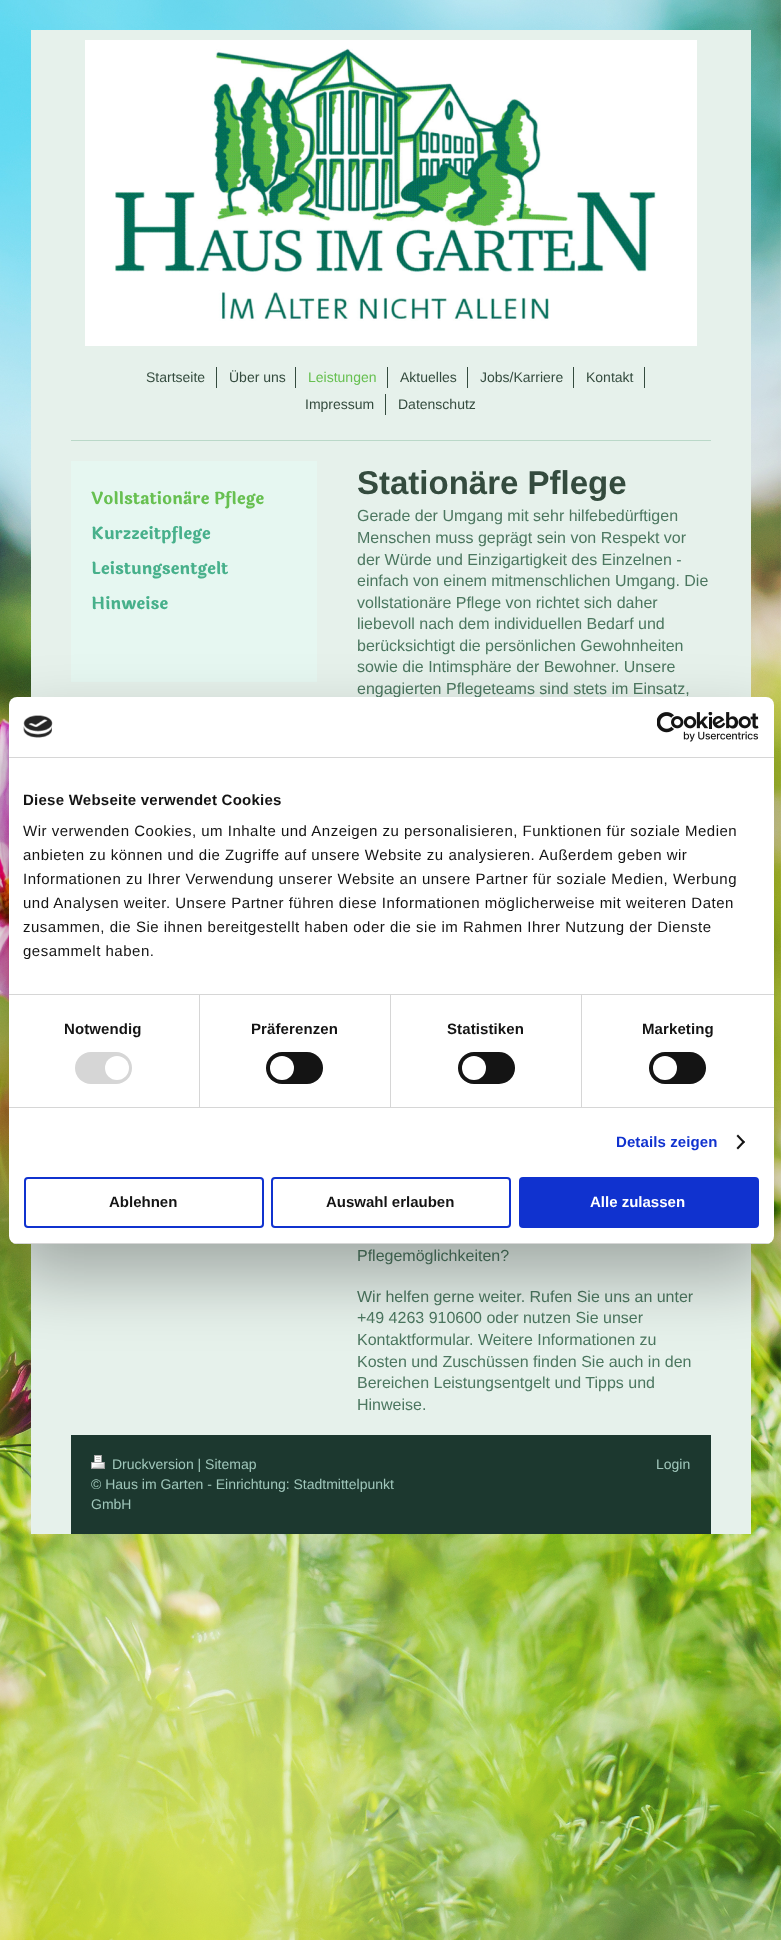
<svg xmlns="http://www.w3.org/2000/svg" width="781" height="1940">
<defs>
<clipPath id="clip1"><rect x="91" y="1455" width="600" height="59"/></clipPath>
<clipPath id="clip2"><rect x="9" y="697" width="765" height="547" rx="8"/></clipPath>
</defs>
<rect width="100%" height="100%" fill="#fff"/>
<image x="0" y="0" width="781" height="1940" href="media/1.png"/>
<rect x="31" y="30" width="720" height="1504" fill="#e6f1eb"/>
<image x="85" y="40" width="612" height="306" href="media/2.png"/>
<rect x="71" y="440" width="640" height="1" fill="#bad8c8"/>
<rect x="216" y="367" width="1" height="21" fill="#344b3e"/>
<text x="146" y="382" style="font-family:Liberation Sans;font-size:14px;fill:#344b3e">Startseite</text>
<rect x="295" y="367" width="1" height="21" fill="#344b3e"/>
<text x="229" y="382" style="font-family:Liberation Sans;font-size:14px;fill:#344b3e">Über uns</text>
<rect x="387" y="367" width="1" height="21" fill="#344b3e"/>
<text x="308" y="382" style="font-family:Liberation Sans;font-size:14px;fill:#67c051">Leistungen</text>
<rect x="467" y="367" width="1" height="21" fill="#344b3e"/>
<text x="400" y="382" style="font-family:Liberation Sans;font-size:14px;fill:#344b3e">Aktuelles</text>
<rect x="573" y="367" width="1" height="21" fill="#344b3e"/>
<text x="480" y="382" style="font-family:Liberation Sans;font-size:14px;fill:#344b3e">Jobs/Karriere</text>
<rect x="644" y="367" width="1" height="21" fill="#344b3e"/>
<text x="586" y="382" style="font-family:Liberation Sans;font-size:14px;fill:#344b3e">Kontakt</text>
<rect x="385" y="394" width="1" height="21" fill="#344b3e"/>
<text x="305" y="409" style="font-family:Liberation Sans;font-size:14px;fill:#344b3e">Impressum</text>
<text x="398" y="409" style="font-family:Liberation Sans;font-size:14px;fill:#344b3e">Datenschutz</text>
<rect x="71" y="461" width="246" height="221" fill="#e6f7f1"/>
<text x="91" y="504" style="font-family:Laila;font-size:16.75px;font-weight:bold;fill:#67c051">Vollstationäre Pflege</text>
<text x="91" y="539" style="font-family:Laila;font-size:16.75px;font-weight:bold;fill:#47b08b">Kurzzeitpflege</text>
<text x="91" y="574" style="font-family:Laila;font-size:16.75px;font-weight:bold;fill:#47b08b">Leistungsentgelt</text>
<text x="91" y="609" style="font-family:Laila;font-size:16.75px;font-weight:bold;fill:#47b08b">Hinweise</text>
<text x="357" y="494" style="font-family:Liberation Sans;font-size:33px;font-weight:bold;fill:#344b3e">Stationäre Pflege</text>
<text x="357" y="521" style="font-family:Liberation Sans;font-size:16px;fill:#4c7760">Gerade der Umgang mit sehr hilfebedürftigen</text>
<text x="357" y="543" style="font-family:Liberation Sans;font-size:16px;fill:#4c7760">Menschen muss geprägt sein von Respekt vor</text>
<text x="357" y="565" style="font-family:Liberation Sans;font-size:16px;fill:#4c7760">der Würde und Einzigartigkeit des Einzelnen -</text>
<text x="357" y="586" style="font-family:Liberation Sans;font-size:16px;fill:#4c7760">einfach von einem mitmenschlichen Umgang. Die</text>
<text x="357" y="608" style="font-family:Liberation Sans;font-size:16px;fill:#4c7760">vollstationäre Pflege von richtet sich daher</text>
<text x="357" y="629" style="font-family:Liberation Sans;font-size:16px;fill:#4c7760">liebevoll nach dem individuellen Bedarf und</text>
<text x="357" y="651" style="font-family:Liberation Sans;font-size:16px;fill:#4c7760">berücksichtigt die persönlichen Gewohnheiten</text>
<text x="357" y="672" style="font-family:Liberation Sans;font-size:16px;fill:#4c7760">sowie die Intimsphäre der Bewohner. Unsere</text>
<text x="357" y="694" style="font-family:Liberation Sans;font-size:16px;fill:#4c7760">engagierten Pflegeteams sind stets im Einsatz,</text>
<text x="357" y="1261" style="font-family:Liberation Sans;font-size:16px;fill:#4c7760">Pflegemöglichkeiten?</text>
<text x="357" y="1302" style="font-family:Liberation Sans;font-size:16px;fill:#4c7760">Wir helfen gerne weiter. Rufen Sie uns an unter</text>
<text x="357" y="1323" style="font-family:Liberation Sans;font-size:16px;fill:#4c7760">+49 4263 910600 oder nutzen Sie unser</text>
<text x="357" y="1345" style="font-family:Liberation Sans;font-size:16px;fill:#4c7760">Kontaktformular. Weitere Informationen zu</text>
<text x="357" y="1367" style="font-family:Liberation Sans;font-size:16px;fill:#4c7760">Kosten und Zuschüssen finden Sie auch in den</text>
<text x="357" y="1388" style="font-family:Liberation Sans;font-size:16px;fill:#4c7760">Bereichen Leistungsentgelt und Tipps und</text>
<text x="357" y="1410" style="font-family:Liberation Sans;font-size:16px;fill:#4c7760">Hinweise.</text>
<rect x="71" y="1435" width="640" height="99" fill="#1c382f"/>
<image x="91" y="1455" width="14" height="14" href="media/3.png"/>
<text x="112" y="1469" style="font-family:Liberation Sans;font-size:14px;fill:#a0c7bb">Druckversion | Sitemap</text>
<g clip-path="url(#clip1)">
<text x="91" y="1489" style="font-family:Liberation Sans;font-size:14px;fill:#a0c7bb">© Haus im Garten - Einrichtung: Stadtmittelpunkt</text>
</g>
<text x="91" y="1509" style="font-family:Liberation Sans;font-size:14px;fill:#a0c7bb">GmbH</text>
<text x="656" y="1469" style="font-family:Liberation Sans;font-size:14px;fill:#a0c7bb">Login</text>
<rect x="9" y="729" width="765" height="547" rx="8" fill="#0000004d" filter="blur(34px)"/>
<rect x="9" y="697" width="765" height="547" rx="8" fill="#fff"/>
<rect x="9" y="757" width="765" height="1" fill="#d6d6d6"/>
<image x="23" y="715" width="30" height="23" href="media/4.png"/>
<image x="657" y="712" width="102" height="30" href="media/5.png"/>
<rect x="9" y="994" width="765" height="1" fill="#d6d6d6"/>
<text x="23" y="805" style="font-family:Liberation Sans;font-size:15px;font-weight:bold;letter-spacing:0.25px;fill:#141414">Diese Webseite verwendet Cookies</text>
<text x="23" y="836" style="font-family:Liberation Sans;font-size:15px;letter-spacing:0.5px;fill:#141414">Wir verwenden Cookies, um Inhalte und Anzeigen zu personalisieren, Funktionen für soziale Medien</text>
<text x="23" y="860" style="font-family:Liberation Sans;font-size:15px;letter-spacing:0.5px;fill:#141414">anbieten zu können und die Zugriffe auf unsere Website zu analysieren. Außerdem geben wir</text>
<text x="23" y="884" style="font-family:Liberation Sans;font-size:15px;letter-spacing:0.5px;fill:#141414">Informationen zu Ihrer Verwendung unserer Website an unsere Partner für soziale Medien, Werbung</text>
<text x="23" y="908" style="font-family:Liberation Sans;font-size:15px;letter-spacing:0.5px;fill:#141414">und Analysen weiter. Unsere Partner führen diese Informationen möglicherweise mit weiteren Daten</text>
<text x="23" y="932" style="font-family:Liberation Sans;font-size:15px;letter-spacing:0.5px;fill:#141414">zusammen, die Sie ihnen bereitgestellt haben oder die sie im Rahmen Ihrer Nutzung der Dienste</text>
<text x="23" y="956" style="font-family:Liberation Sans;font-size:15px;letter-spacing:0.5px;fill:#141414">gesammelt haben.</text>
<rect x="9" y="1107" width="765" height="1" fill="#d6d6d6"/>
<rect x="199" y="995" width="1" height="112" fill="#d6d6d6"/>
<text x="64" y="1034" style="font-family:Liberation Sans;font-size:15px;font-weight:bold;letter-spacing:0.1px;fill:#141414">Notwendig</text>
<rect x="75" y="1052" width="57" height="32" rx="16" fill="#d6d6d6"/>
<circle cx="117" cy="1068" r="12" fill="#fff"/>
<rect x="390" y="995" width="1" height="112" fill="#d6d6d6"/>
<text x="251" y="1034" style="font-family:Liberation Sans;font-size:15px;font-weight:bold;letter-spacing:0.1px;fill:#141414">Präferenzen</text>
<rect x="266" y="1052" width="57" height="32" rx="16" fill="#141414"/>
<circle cx="282" cy="1068" r="12" fill="#fff"/>
<rect x="581" y="995" width="1" height="112" fill="#d6d6d6"/>
<text x="447" y="1034" style="font-family:Liberation Sans;font-size:15px;font-weight:bold;letter-spacing:0.1px;fill:#141414">Statistiken</text>
<rect x="458" y="1052" width="57" height="32" rx="16" fill="#141414"/>
<circle cx="474" cy="1068" r="12" fill="#fff"/>
<text x="642" y="1034" style="font-family:Liberation Sans;font-size:15px;font-weight:bold;letter-spacing:0.1px;fill:#141414">Marketing</text>
<rect x="649" y="1052" width="57" height="32" rx="16" fill="#141414"/>
<circle cx="665" cy="1068" r="12" fill="#fff"/>
<text x="616" y="1147" style="font-family:Liberation Sans;font-size:15px;font-weight:bold;letter-spacing:0.1px;fill:#1032cf">Details zeigen</text>
<path d="M738 1134.5l7 7.5l-1.5 1.5l-7-7.5z" fill="#141414"/>
<path d="M743.5 1140.5l1.5 1.5l-7 7.5l-1.5-1.5z" fill="#141414"/>
<g clip-path="url(#clip2)">
<rect x="9" y="1243" width="765" height="1" fill="#d6d6d6"/>
</g>
<rect x="25" y="1178" width="238" height="49" rx="3" fill="none" stroke="#1032cf" stroke-width="2"/>
<text x="109" y="1207" style="font-family:Liberation Sans;font-size:15px;font-weight:bold;fill:#141414">Ablehnen</text>
<rect x="272" y="1178" width="238" height="49" rx="3" fill="none" stroke="#1032cf" stroke-width="2"/>
<text x="326" y="1207" style="font-family:Liberation Sans;font-size:15px;font-weight:bold;fill:#141414">Auswahl erlauben</text>
<rect x="520" y="1178" width="238" height="49" rx="3" fill="#1032cf" stroke="#1032cf" stroke-width="2"/>
<text x="590" y="1207" style="font-family:Liberation Sans;font-size:15px;font-weight:bold;fill:#fff">Alle zulassen</text>
</svg>
